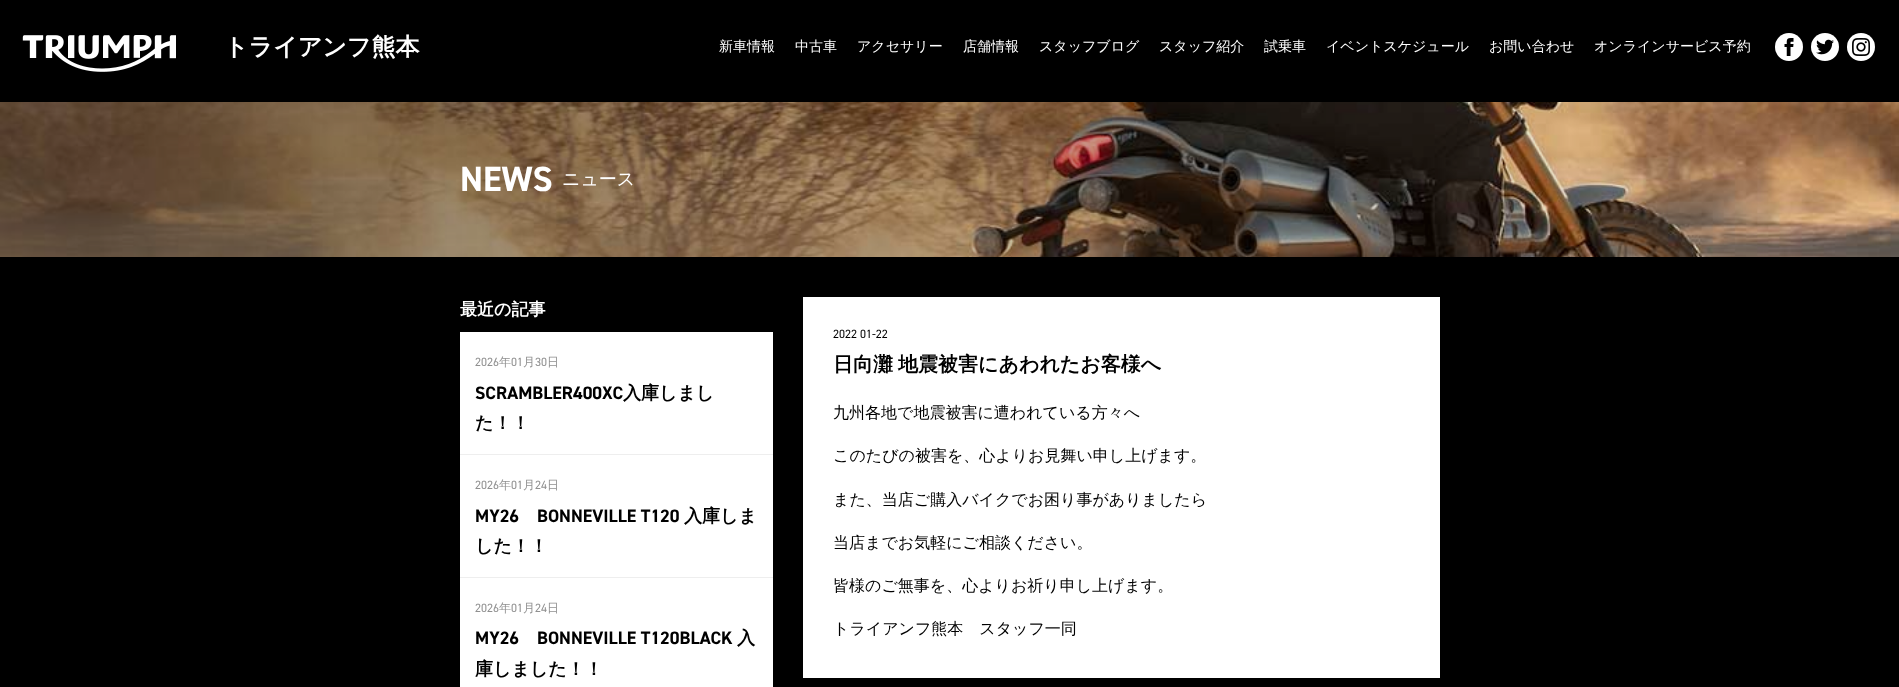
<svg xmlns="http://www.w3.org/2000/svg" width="1899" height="687">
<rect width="100%" height="100%" fill="#000"/>
<image x="22" y="35" width="154" height="37" href="media/1.png"/>
<text x="224" y="55" style="font-family:WenQuanYi Zen Hei;font-size:24px;font-weight:bold;fill:#fff">トライアンフ熊本</text>
<text x="719" y="51" style="font-family:WenQuanYi Zen Hei;font-size:14px;font-weight:500;fill:#fff">新車情報</text>
<text x="795" y="51" style="font-family:WenQuanYi Zen Hei;font-size:14px;font-weight:500;fill:#fff">中古車</text>
<text x="857" y="51" style="font-family:WenQuanYi Zen Hei;font-size:14px;font-weight:500;fill:#fff">アクセサリー</text>
<text x="963" y="51" style="font-family:WenQuanYi Zen Hei;font-size:14px;font-weight:500;fill:#fff">店舗情報</text>
<text x="1039" y="51" style="font-family:WenQuanYi Zen Hei;font-size:14px;font-weight:500;fill:#fff">スタッフブログ</text>
<text x="1159" y="51" style="font-family:WenQuanYi Zen Hei;font-size:14px;font-weight:500;fill:#fff">スタッフ紹介</text>
<text x="1264" y="51" style="font-family:WenQuanYi Zen Hei;font-size:14px;font-weight:500;fill:#fff">試乗車</text>
<text x="1326" y="51" style="font-family:WenQuanYi Zen Hei;font-size:14px;font-weight:500;fill:#fff">イベントスケジュール</text>
<text x="1489" y="51" style="font-family:WenQuanYi Zen Hei;font-size:14px;font-weight:500;fill:#fff">お問い合わせ</text>
<text x="1594" y="51" style="font-family:WenQuanYi Zen Hei;font-size:14px;font-weight:500;fill:#fff">オンラインサービス予約</text>
<circle cx="1789" cy="47" r="14" fill="#fff"/>
<image x="1784" y="38" width="10" height="18" href="media/2.png"/>
<circle cx="1825" cy="47" r="14" fill="#fff"/>
<image x="1816" y="39" width="18" height="16" href="media/3.png"/>
<circle cx="1861" cy="47" r="14" fill="#fff"/>
<image x="1852" y="38" width="18" height="18" href="media/4.png"/>
<image x="0" y="102" width="1899" height="155" href="media/5.png"/>
<text x="460" y="191" style="font-family:'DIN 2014';font-size:35px;font-weight:bold;fill:#fff">NEWS</text>
<text x="562" y="185" style="font-family:WenQuanYi Zen Hei;font-size:18px;font-weight:500;fill:#fff">ニュース</text>
<text x="460" y="315" style="font-family:WenQuanYi Zen Hei;font-size:17px;font-weight:bold;fill:#fff">最近の記事</text>
<rect x="460" y="332" width="313" height="355" fill="#fff"/>
<text x="475" y="366" style="font-family:'DIN 2014';font-size:12px;fill:#909090">2026</text>
<text x="499" y="366" style="font-family:WenQuanYi Zen Hei;font-size:12px;font-weight:500;fill:#909090">年</text>
<text x="511" y="366" style="font-family:'DIN 2014';font-size:12px;fill:#909090">01</text>
<text x="523" y="366" style="font-family:WenQuanYi Zen Hei;font-size:12px;font-weight:500;fill:#909090">月</text>
<text x="535" y="366" style="font-family:'DIN 2014';font-size:12px;fill:#909090">30</text>
<text x="547" y="366" style="font-family:WenQuanYi Zen Hei;font-size:12px;font-weight:500;fill:#909090">日</text>
<text x="475" y="399" style="font-family:'DIN 2014';font-size:18px;font-weight:bold;fill:#000">SCRAMBLER400XC</text>
<text x="623" y="399" style="font-family:WenQuanYi Zen Hei;font-size:18px;font-weight:bold;fill:#000">入庫しまし</text>
<text x="475" y="429" style="font-family:WenQuanYi Zen Hei;font-size:18px;font-weight:bold;fill:#000">た！！</text>
<rect x="460" y="454" width="313" height="1" fill="#eee"/>
<text x="475" y="489" style="font-family:'DIN 2014';font-size:12px;fill:#909090">2026</text>
<text x="499" y="489" style="font-family:WenQuanYi Zen Hei;font-size:12px;font-weight:500;fill:#909090">年</text>
<text x="511" y="489" style="font-family:'DIN 2014';font-size:12px;fill:#909090">01</text>
<text x="523" y="489" style="font-family:WenQuanYi Zen Hei;font-size:12px;font-weight:500;fill:#909090">月</text>
<text x="535" y="489" style="font-family:'DIN 2014';font-size:12px;fill:#909090">24</text>
<text x="547" y="489" style="font-family:WenQuanYi Zen Hei;font-size:12px;font-weight:500;fill:#909090">日</text>
<text x="475" y="522" style="font-family:'DIN 2014';font-size:18px;font-weight:bold;fill:#000">MY26</text>
<text x="537" y="522" style="font-family:'DIN 2014';font-size:18px;font-weight:bold;fill:#000">BONNEVILLE T120</text>
<text x="684" y="522" style="font-family:WenQuanYi Zen Hei;font-size:18px;font-weight:bold;fill:#000">入庫しま</text>
<text x="475" y="552" style="font-family:WenQuanYi Zen Hei;font-size:18px;font-weight:bold;fill:#000">した！！</text>
<rect x="460" y="577" width="313" height="1" fill="#eee"/>
<text x="475" y="612" style="font-family:'DIN 2014';font-size:12px;fill:#909090">2026</text>
<text x="499" y="612" style="font-family:WenQuanYi Zen Hei;font-size:12px;font-weight:500;fill:#909090">年</text>
<text x="511" y="612" style="font-family:'DIN 2014';font-size:12px;fill:#909090">01</text>
<text x="523" y="612" style="font-family:WenQuanYi Zen Hei;font-size:12px;font-weight:500;fill:#909090">月</text>
<text x="535" y="612" style="font-family:'DIN 2014';font-size:12px;fill:#909090">24</text>
<text x="547" y="612" style="font-family:WenQuanYi Zen Hei;font-size:12px;font-weight:500;fill:#909090">日</text>
<text x="475" y="644" style="font-family:'DIN 2014';font-size:18px;font-weight:bold;fill:#000">MY26</text>
<text x="537" y="644" style="font-family:'DIN 2014';font-size:18px;font-weight:bold;fill:#000">BONNEVILLE T120BLACK</text>
<text x="737" y="644" style="font-family:WenQuanYi Zen Hei;font-size:18px;font-weight:bold;fill:#000">入</text>
<text x="475" y="675" style="font-family:WenQuanYi Zen Hei;font-size:18px;font-weight:bold;fill:#000">庫しました！！</text>
<rect x="803" y="297" width="637" height="381" fill="#fff"/>
<text x="833" y="338" style="font-family:'DIN 2014';font-size:12px;fill:#000">2022 01-22</text>
<text x="833" y="371" word-spacing="-1" style="font-family:WenQuanYi Zen Hei;font-size:20px;font-weight:bold;fill:#000">日向灘 地震被害にあわれたお客様へ</text>
<text x="833" y="418" style="font-family:WenQuanYi Zen Hei;font-size:16px;font-weight:500;fill:#000">九州各地で地震被害に遭われている方々へ</text>
<text x="833" y="461" style="font-family:WenQuanYi Zen Hei;font-size:16px;font-weight:500;fill:#000">このたびの被害を、心よりお見舞い申し上げます。</text>
<text x="833" y="505" style="font-family:WenQuanYi Zen Hei;font-size:16px;font-weight:500;fill:#000">また、当店ご購入バイクでお困り事がありましたら</text>
<text x="833" y="548" style="font-family:WenQuanYi Zen Hei;font-size:16px;font-weight:500;fill:#000">当店までお気軽にご相談ください。</text>
<text x="833" y="591" style="font-family:WenQuanYi Zen Hei;font-size:16px;font-weight:500;fill:#000">皆様のご無事を、心よりお祈り申し上げます。</text>
<text x="833" y="634" style="font-family:WenQuanYi Zen Hei;font-size:16px;font-weight:500;fill:#000">トライアンフ熊本　スタッフ一同</text>
</svg>
